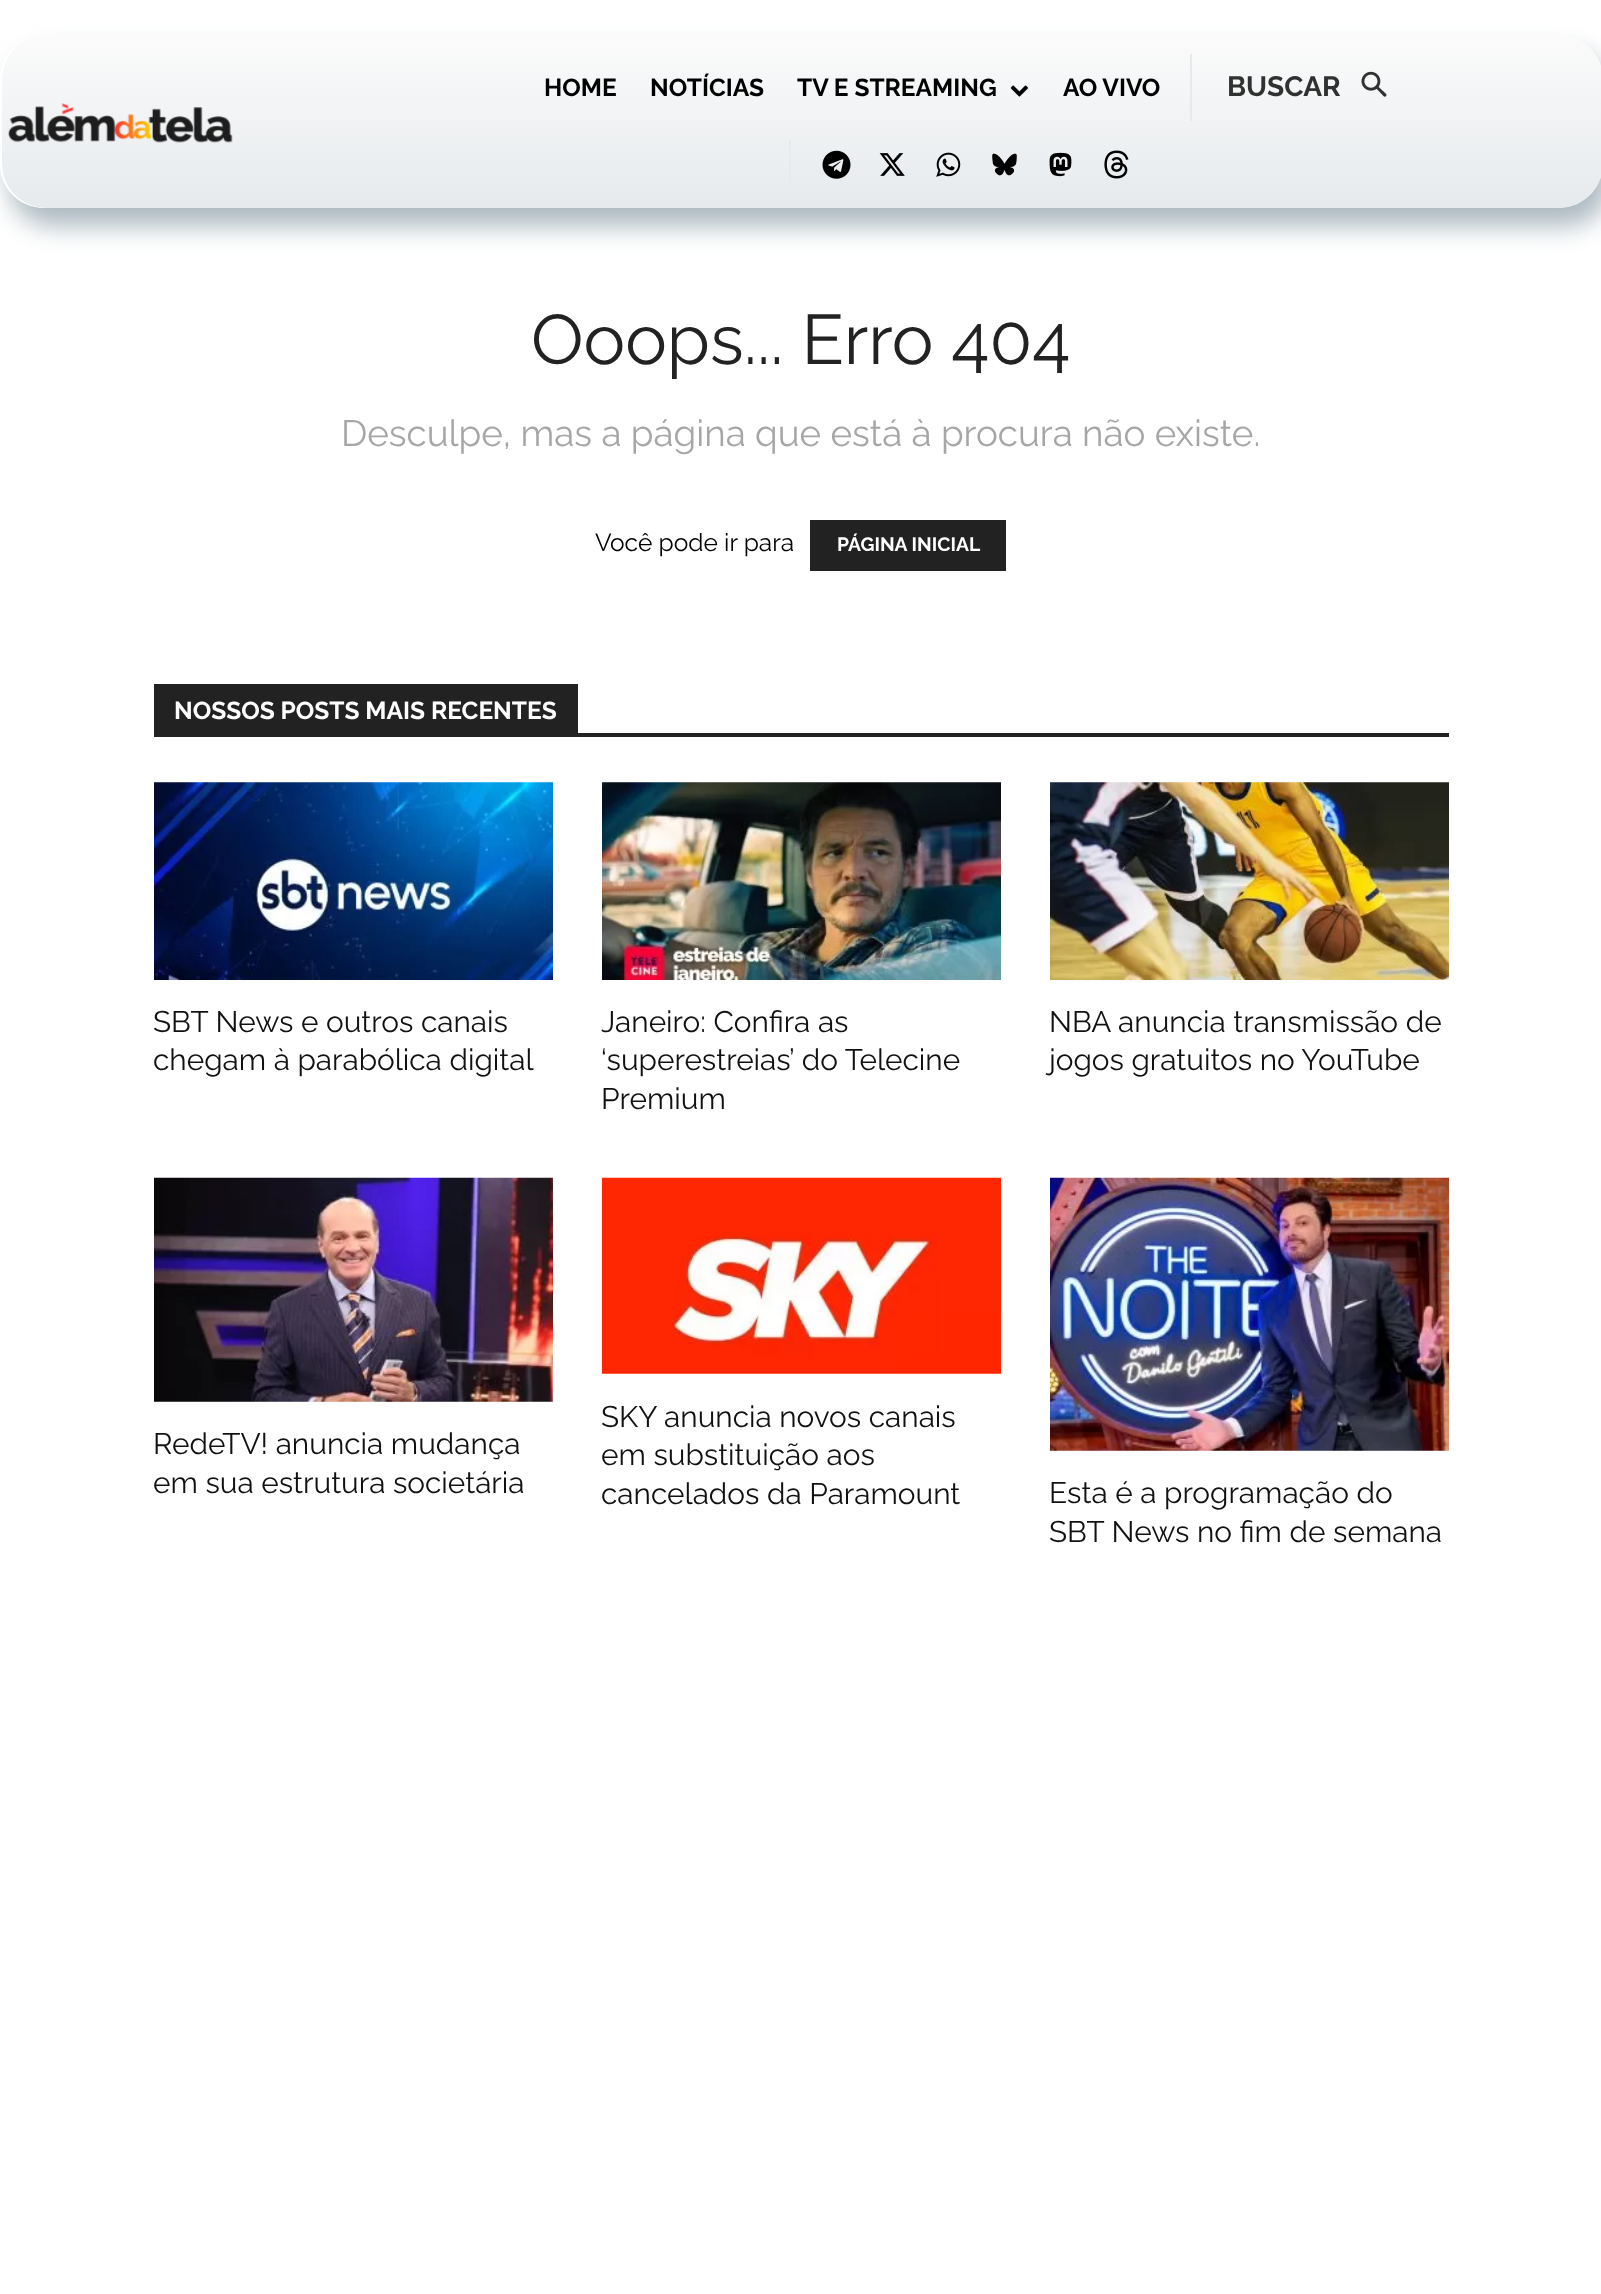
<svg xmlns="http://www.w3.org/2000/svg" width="1601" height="2294">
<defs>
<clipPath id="clip1"><path d="M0 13h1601v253h-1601zm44 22h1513c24.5 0 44 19.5 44 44v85c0 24.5-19.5 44-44 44h-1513c-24.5 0-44-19.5-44-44v-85c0-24.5 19.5-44 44-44z" clip-rule="evenodd"/></clipPath>
<clipPath id="clip2"><rect x="2" y="35" width="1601" height="173" rx="44"/></clipPath>
<linearGradient id="g1" gradientUnits="userSpaceOnUse" x1="802" y1="208" x2="802" y2="35"><stop offset="0" stop-color="#e6eaed"/><stop offset="1" stop-color="#fbfbfb"/></linearGradient>
</defs>
<rect width="100%" height="100%" fill="#fff"/>
<g clip-path="url(#clip1)">
<rect x="9" y="53" width="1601" height="173" rx="44" fill="#abb8c0" filter="blur(13px)"/>
</g>
<g clip-path="url(#clip2)">
<path d="M46 35h1555v173h-1555c-24.5 0-44-19.5-44-44v-85c0-24.5 19.5-44 44-44z" fill="url(#g1)"/>
</g>
<text x="544" y="96" style="font-family:'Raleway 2';font-size:24.5px;font-weight:100;fill:#000">HOME</text>
<text x="650" y="96" style="font-family:'Raleway 2';font-size:24.5px;font-weight:100;fill:#000">NOTÍCIAS</text>
<text x="797" y="96" style="font-family:'Raleway 2';font-size:24.5px;font-weight:100;fill:#000">TV E STREAMING</text>
<image x="1010" y="85" width="18" height="12" href="media/1.png"/>
<text x="1063" y="96" style="font-family:'Raleway 2';font-size:24.5px;font-weight:100;fill:#000">AO VIVO</text>
<rect x="1190" y="54" width="2" height="67" fill="#e6eaed"/>
<text x="1227" y="96" style="font-family:'Raleway 2';font-size:28px;font-weight:100;fill:#313131">BUSCAR</text>
<image x="1361" y="71" width="26" height="26" href="media/2.png"/>
<rect x="789" y="140" width="2" height="47" fill="#e6eaed"/>
<image x="822" y="150" width="29" height="29" href="media/3.png"/>
<image x="879" y="153" width="26" height="23" href="media/4.png"/>
<image x="936" y="152" width="25" height="25" href="media/5.png"/>
<image x="992" y="153" width="25" height="23" href="media/6.png"/>
<image x="1049" y="152" width="23" height="25" href="media/7.png"/>
<image x="1104" y="150" width="25" height="29" href="media/8.png"/>
<image x="8" y="103" width="225" height="40" href="media/9.png"/>
<text x="531" y="364" style="font-family:Raleway;font-size:70px;font-weight:100;fill:#222">Ooops... Erro 404</text>
<text x="341" y="446" style="font-family:Raleway;font-size:36.75px;font-weight:100;fill:#a6a6a6">Desculpe, mas a página que está à procura não existe.</text>
<text x="595" y="551" style="font-family:Raleway;font-size:24.5px;font-weight:100;fill:#000">Você pode ir para</text>
<rect x="810" y="520" width="196" height="51" fill="#222"/>
<text x="837" y="551" style="font-family:'Raleway 2';font-size:19.25px;font-weight:100;fill:#fff">PÁGINA INICIAL</text>
<rect x="154" y="733" width="1295" height="4" fill="#222"/>
<rect x="154" y="684" width="424" height="49" fill="#222"/>
<text x="174" y="719" style="font-family:'Raleway 2';font-size:24.5px;font-weight:100;fill:#fff">NOSSOS POSTS MAIS RECENTES</text>
<image x="154" y="782" width="399" height="198" href="media/10.png"/>
<text x="153" y="1032" style="font-family:Raleway;font-size:29.75px;font-weight:100;fill:#111">SBT News e outros canais</text>
<text x="153" y="1070" style="font-family:Raleway;font-size:29.75px;font-weight:100;fill:#111">chegam à parabólica digital</text>
<image x="602" y="782" width="399" height="198" href="media/11.png"/>
<text x="601" y="1032" style="font-family:Raleway;font-size:29.75px;font-weight:100;fill:#111">Janeiro: Confira as</text>
<text x="601" y="1070" style="font-family:Raleway;font-size:29.75px;font-weight:100;fill:#111">‘superestreias’ do Telecine</text>
<text x="601" y="1109" style="font-family:Raleway;font-size:29.75px;font-weight:100;fill:#111">Premium</text>
<image x="1050" y="782" width="399" height="198" href="media/12.png"/>
<text x="1049" y="1032" style="font-family:Raleway;font-size:29.75px;font-weight:100;fill:#111">NBA anuncia transmissão de</text>
<text x="1049" y="1070" style="font-family:Raleway;font-size:29.75px;font-weight:100;fill:#111">jogos gratuitos no YouTube</text>
<image x="154" y="1177" width="399" height="225" href="media/13.png"/>
<text x="153" y="1454" style="font-family:Raleway;font-size:29.75px;font-weight:100;fill:#111">RedeTV! anuncia mudança</text>
<text x="153" y="1493" style="font-family:Raleway;font-size:29.75px;font-weight:100;fill:#111">em sua estrutura societária</text>
<image x="602" y="1177" width="399" height="197" href="media/14.png"/>
<text x="601" y="1427" style="font-family:Raleway;font-size:29.75px;font-weight:100;fill:#111">SKY anuncia novos canais</text>
<text x="601" y="1465" style="font-family:Raleway;font-size:29.75px;font-weight:100;fill:#111">em substituição aos</text>
<text x="601" y="1504" style="font-family:Raleway;font-size:29.75px;font-weight:100;fill:#111">cancelados da Paramount</text>
<image x="1050" y="1177" width="399" height="274" href="media/15.png"/>
<text x="1049" y="1503" style="font-family:Raleway;font-size:29.75px;font-weight:100;fill:#111">Esta é a programação do</text>
<text x="1049" y="1542" style="font-family:Raleway;font-size:29.75px;font-weight:100;fill:#111">SBT News no fim de semana</text>
</svg>
